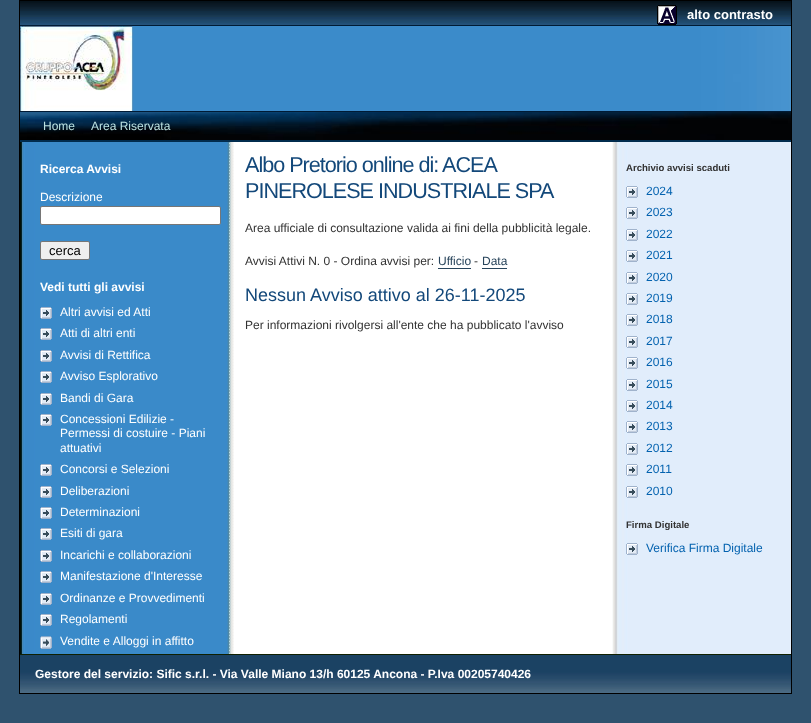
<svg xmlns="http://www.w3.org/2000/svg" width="811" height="723">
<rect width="100%" height="100%" fill="#2f526e"/>
<rect x="234" y="142" width="378" height="512" fill="#fff"/>
<rect x="19.5" y="0.5" width="772" height="693" fill="none" stroke="#000"/>
<image x="20" y="142" width="214" height="512" href="media/1.png"/>
<image x="612" y="142" width="179" height="512" href="media/2.png"/>
<image x="20" y="1" width="771" height="24" href="media/3.png"/>
<image x="657" y="5" width="20" height="20" href="media/4.png"/>
<text x="687" y="19" style="font-family:Liberation Sans;font-size:13px;font-weight:bold;fill:#fff">alto contrasto</text>
<image x="20" y="26" width="771" height="85" href="media/5.png"/>
<rect x="20" y="25" width="771" height="1" fill="#001b35"/>
<rect x="20" y="111" width="771" height="1" fill="#001b35"/>
<image x="20" y="112" width="771" height="28" href="media/6.png"/>
<rect x="20" y="140" width="771" height="2" fill="#012c4e"/>
<text x="43" y="130" style="font-family:Liberation Sans;font-size:12px;fill:#bbe1e1">Home</text>
<text x="91" y="130" style="font-family:Liberation Sans;font-size:12px;fill:#bbe1e1">Area Riservata</text>
<rect x="25" y="142" width="9" height="512" fill="#3a89c9"/>
<text x="40" y="173" style="font-family:Liberation Sans;font-size:12px;font-weight:bold;fill:#fff">Ricerca Avvisi</text>
<text x="40" y="201" style="font-family:Liberation Sans;font-size:12px;fill:#fff">Descrizione</text>
<rect x="40.5" y="206.5" width="180" height="18" rx="1.5" fill="#fff" stroke="#767676"/>
<rect x="40.5" y="241.5" width="49" height="18" rx="1.5" fill="#efefef" stroke="#767676"/>
<text x="49" y="255" style="font-family:Liberation Sans;font-size:13px;fill:#000">cerca</text>
<text x="40" y="291" style="font-family:Liberation Sans;font-size:12px;font-weight:bold;fill:#fff">Vedi tutti gli avvisi</text>
<image x="40" y="307" width="12" height="12" href="media/7.png"/>
<text x="60" y="316" style="font-family:Liberation Sans;font-size:12px;fill:#fff">Altri avvisi ed Atti</text>
<image x="40" y="328" width="12" height="12" href="media/7.png"/>
<text x="60" y="337" style="font-family:Liberation Sans;font-size:12px;fill:#fff">Atti di altri enti</text>
<image x="40" y="350" width="12" height="12" href="media/7.png"/>
<text x="60" y="359" style="font-family:Liberation Sans;font-size:12px;fill:#fff">Avvisi di Rettifica</text>
<image x="40" y="371" width="12" height="12" href="media/7.png"/>
<text x="60" y="380" style="font-family:Liberation Sans;font-size:12px;fill:#fff">Avviso Esplorativo</text>
<image x="40" y="393" width="12" height="12" href="media/7.png"/>
<text x="60" y="402" style="font-family:Liberation Sans;font-size:12px;fill:#fff">Bandi di Gara</text>
<image x="40" y="414" width="12" height="12" href="media/7.png"/>
<text x="60" y="423" style="font-family:Liberation Sans;font-size:12px;fill:#fff">Concessioni Edilizie -</text>
<text x="60" y="437" style="font-family:Liberation Sans;font-size:12px;fill:#fff">Permessi di costuire - Piani</text>
<text x="60" y="452" style="font-family:Liberation Sans;font-size:12px;fill:#fff">attuativi</text>
<image x="40" y="464" width="12" height="12" href="media/7.png"/>
<text x="60" y="473" style="font-family:Liberation Sans;font-size:12px;fill:#fff">Concorsi e Selezioni</text>
<image x="40" y="486" width="12" height="12" href="media/7.png"/>
<text x="60" y="495" style="font-family:Liberation Sans;font-size:12px;fill:#fff">Deliberazioni</text>
<image x="40" y="507" width="12" height="12" href="media/7.png"/>
<text x="60" y="516" style="font-family:Liberation Sans;font-size:12px;fill:#fff">Determinazioni</text>
<image x="40" y="528" width="12" height="12" href="media/7.png"/>
<text x="60" y="537" style="font-family:Liberation Sans;font-size:12px;fill:#fff">Esiti di gara</text>
<image x="40" y="550" width="12" height="12" href="media/7.png"/>
<text x="60" y="559" style="font-family:Liberation Sans;font-size:12px;fill:#fff">Incarichi e collaborazioni</text>
<image x="40" y="571" width="12" height="12" href="media/7.png"/>
<text x="60" y="580" style="font-family:Liberation Sans;font-size:12px;fill:#fff">Manifestazione d'Interesse</text>
<image x="40" y="593" width="12" height="12" href="media/7.png"/>
<text x="60" y="602" style="font-family:Liberation Sans;font-size:12px;fill:#fff">Ordinanze e Provvedimenti</text>
<image x="40" y="614" width="12" height="12" href="media/7.png"/>
<text x="60" y="623" style="font-family:Liberation Sans;font-size:12px;fill:#fff">Regolamenti</text>
<image x="40" y="636" width="12" height="13" href="media/8.png"/>
<text x="60" y="645" style="font-family:Liberation Sans;font-size:12px;fill:#fff">Vendite e Alloggi in affitto</text>
<text x="245" y="172" style="font-family:Liberation Sans;font-size:21.6px;letter-spacing:-1px;fill:#13487a">Albo Pretorio online di:</text>
<text x="442" y="172" style="font-family:Liberation Sans;font-size:21.6px;letter-spacing:-1px;fill:#13487a">ACEA</text>
<text x="245" y="198" style="font-family:Liberation Sans;font-size:21.6px;letter-spacing:-1px;fill:#13487a">PINEROLESE INDUSTRIALE SPA</text>
<text x="245" y="232" style="font-family:Liberation Sans;font-size:12px;fill:#323232">Area ufficiale di consultazione valida ai fini della pubblicità legale.</text>
<text x="245" y="265" style="font-family:Liberation Sans;font-size:12px;fill:#323232">Avvisi Attivi N. 0 - Ordina avvisi per:</text>
<text x="438" y="265" style="font-family:Liberation Sans;font-size:12px;fill:#28445b">Ufficio</text>
<rect x="438" y="268" width="33" height="1" fill="#28445b"/>
<text x="474" y="265" style="font-family:Liberation Sans;font-size:12px;fill:#323232">-</text>
<text x="482" y="265" style="font-family:Liberation Sans;font-size:12px;fill:#28445b">Data</text>
<rect x="482" y="268" width="25" height="1" fill="#28445b"/>
<text x="245" y="301" style="font-family:Liberation Sans;font-size:18px;fill:#13487a">Nessun Avviso attivo al 26-11-2025</text>
<text x="245" y="329" style="font-family:Liberation Sans;font-size:12px;fill:#323232">Per informazioni rivolgersi all'ente che ha pubblicato l'avviso</text>
<text x="626" y="171" style="font-family:Liberation Sans;font-size:9.6px;font-weight:bold;fill:#323232">Archivio avvisi scaduti</text>
<image x="626" y="186" width="12" height="12" href="media/9.png"/>
<text x="646" y="195" style="font-family:Liberation Sans;font-size:12px;fill:#0362af">2024</text>
<image x="626" y="207" width="12" height="12" href="media/9.png"/>
<text x="646" y="216" style="font-family:Liberation Sans;font-size:12px;fill:#0362af">2023</text>
<image x="626" y="229" width="12" height="12" href="media/9.png"/>
<text x="646" y="238" style="font-family:Liberation Sans;font-size:12px;fill:#0362af">2022</text>
<image x="626" y="250" width="12" height="12" href="media/9.png"/>
<text x="646" y="259" style="font-family:Liberation Sans;font-size:12px;fill:#0362af">2021</text>
<image x="626" y="272" width="12" height="12" href="media/9.png"/>
<text x="646" y="281" style="font-family:Liberation Sans;font-size:12px;fill:#0362af">2020</text>
<image x="626" y="293" width="12" height="12" href="media/9.png"/>
<text x="646" y="302" style="font-family:Liberation Sans;font-size:12px;fill:#0362af">2019</text>
<image x="626" y="314" width="12" height="12" href="media/9.png"/>
<text x="646" y="323" style="font-family:Liberation Sans;font-size:12px;fill:#0362af">2018</text>
<image x="626" y="336" width="12" height="12" href="media/9.png"/>
<text x="646" y="345" style="font-family:Liberation Sans;font-size:12px;fill:#0362af">2017</text>
<image x="626" y="357" width="12" height="12" href="media/9.png"/>
<text x="646" y="366" style="font-family:Liberation Sans;font-size:12px;fill:#0362af">2016</text>
<image x="626" y="379" width="12" height="12" href="media/9.png"/>
<text x="646" y="388" style="font-family:Liberation Sans;font-size:12px;fill:#0362af">2015</text>
<image x="626" y="400" width="12" height="12" href="media/9.png"/>
<text x="646" y="409" style="font-family:Liberation Sans;font-size:12px;fill:#0362af">2014</text>
<image x="626" y="421" width="12" height="12" href="media/9.png"/>
<text x="646" y="430" style="font-family:Liberation Sans;font-size:12px;fill:#0362af">2013</text>
<image x="626" y="443" width="12" height="12" href="media/9.png"/>
<text x="646" y="452" style="font-family:Liberation Sans;font-size:12px;fill:#0362af">2012</text>
<image x="626" y="464" width="12" height="12" href="media/9.png"/>
<text x="646" y="473" style="font-family:Liberation Sans;font-size:12px;fill:#0362af">2011</text>
<image x="626" y="486" width="12" height="12" href="media/9.png"/>
<text x="646" y="495" style="font-family:Liberation Sans;font-size:12px;fill:#0362af">2010</text>
<text x="626" y="528" style="font-family:Liberation Sans;font-size:9.6px;font-weight:bold;fill:#323232">Firma Digitale</text>
<image x="626" y="543" width="12" height="12" href="media/9.png"/>
<text x="646" y="552" style="font-family:Liberation Sans;font-size:12px;fill:#0362af">Verifica Firma Digitale</text>
<image x="20" y="655" width="771" height="38" href="media/10.png"/>
<rect x="20" y="654" width="771" height="1" fill="#102000"/>
<text x="35" y="678" style="font-family:Liberation Sans;font-size:12px;font-weight:bold;fill:#fff">Gestore del servizio: Sific s.r.l. - Via Valle Miano 13/h 60125 Ancona - P.Iva 00205740426</text>
</svg>
